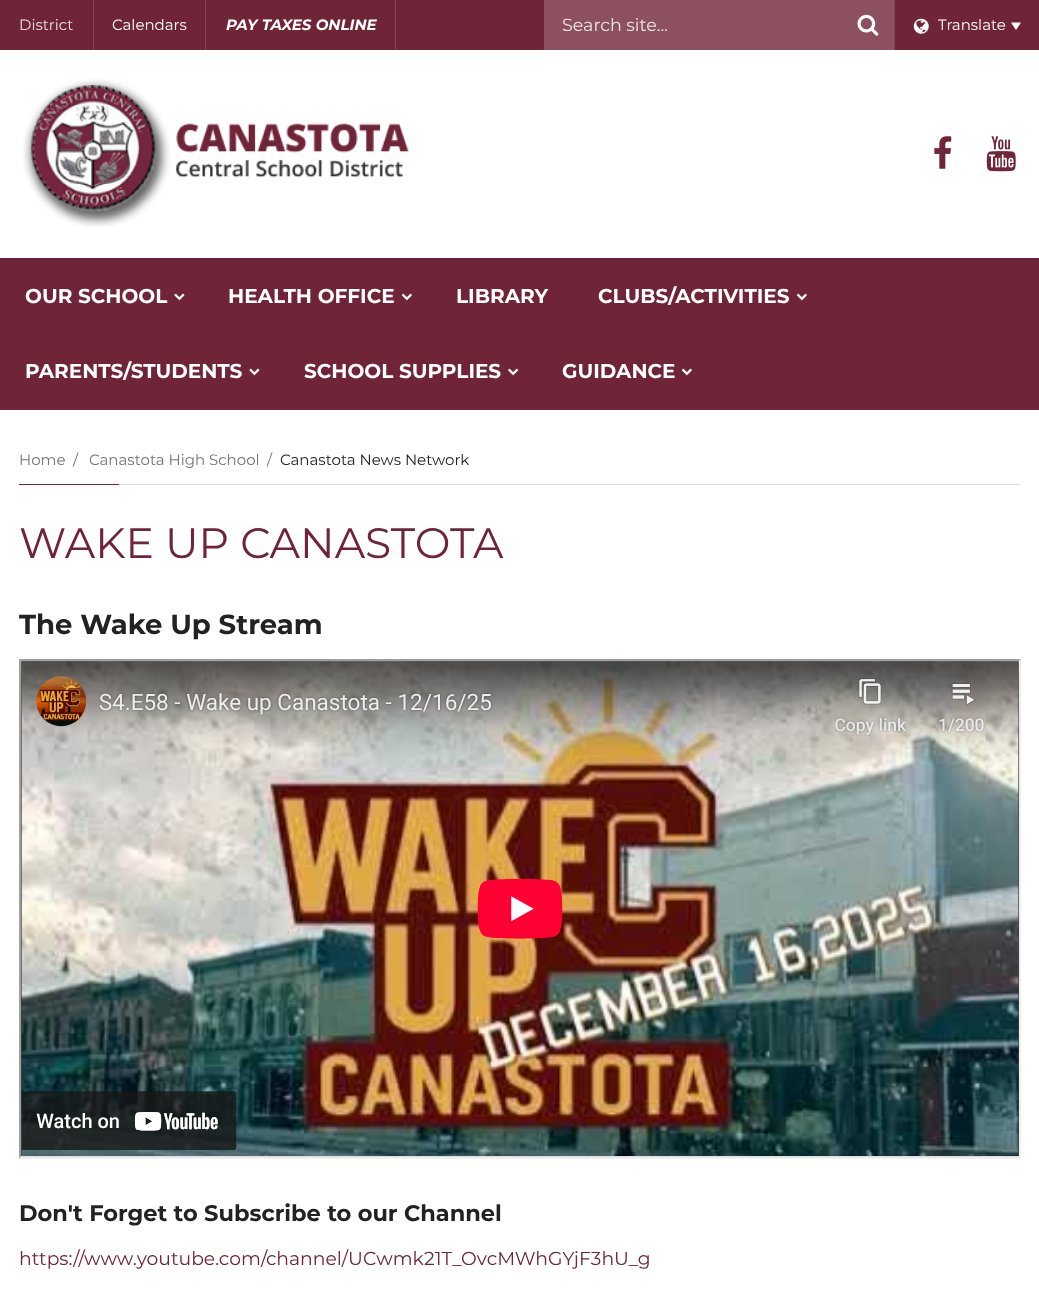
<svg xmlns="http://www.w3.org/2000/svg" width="1039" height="1312">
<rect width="100%" height="100%" fill="#fff"/>
<rect y="258" width="1039" height="152" fill="#6f2438"/>
<rect width="1039" height="50" fill="#6f2438"/>
<rect x="93" width="1" height="50" fill="#854556"/>
<text x="19" y="30" style="font-family:Montserrat;font-size:15px;fill:#e9dee1">District</text>
<rect x="205" width="1" height="50" fill="#854556"/>
<text x="112" y="30" style="font-family:Montserrat;font-size:15px;fill:#fff">Calendars</text>
<rect x="395" width="1" height="50" fill="#854556"/>
<text x="226" y="30" style="font-family:Montserrat;font-size:15px;font-weight:bold;font-style:italic;fill:#fff">PAY TAXES ONLINE</text>
<rect x="544" width="350" height="50" fill="#8c5060"/>
<text x="562" y="31" style="font-family:Montserrat;font-size:17.5px;fill:#eee5e7">Search site...</text>
<image x="857" y="14" width="22" height="22" href="media/1.png"/>
<rect x="894" width="1" height="50" fill="#854556"/>
<image x="913" y="18" width="16" height="16" href="media/2.png"/>
<text x="938" y="30" style="font-family:Montserrat;font-size:15px;fill:#fff">Translate</text>
<path d="M1011 22.5h10l-5 7.5z" fill="#fff"/>
<image x="23" y="79" width="386" height="148" href="media/3.png"/>
<image x="934" y="136" width="18" height="33" href="media/4.png"/>
<image x="986" y="136" width="30" height="36" href="media/5.png"/>
<text x="25" y="303" style="font-family:Montserrat;font-size:20px;font-weight:bold;fill:#fff">OUR SCHOOL</text>
<image x="174" y="293" width="11" height="8" href="media/6.png"/>
<text x="228" y="303" style="font-family:Montserrat;font-size:20px;font-weight:bold;fill:#fff">HEALTH OFFICE</text>
<image x="401" y="293" width="11" height="8" href="media/7.png"/>
<text x="456" y="303" style="font-family:Montserrat;font-size:20px;font-weight:bold;fill:#fff">LIBRARY</text>
<text x="598" y="303" style="font-family:Montserrat;font-size:20px;font-weight:bold;fill:#fff">CLUBS/ACTIVITIES</text>
<image x="796" y="293" width="11" height="8" href="media/7.png"/>
<text x="25" y="378" style="font-family:Montserrat;font-size:20px;font-weight:bold;fill:#fff">PARENTS/STUDENTS</text>
<image x="249" y="368" width="11" height="8" href="media/6.png"/>
<text x="304" y="378" style="font-family:Montserrat;font-size:20px;font-weight:bold;fill:#fff">SCHOOL SUPPLIES</text>
<image x="508" y="368" width="11" height="8" href="media/8.png"/>
<text x="562" y="378" style="font-family:Montserrat;font-size:20px;font-weight:bold;fill:#fff">GUIDANCE</text>
<image x="681" y="368" width="11" height="8" href="media/7.png"/>
<rect x="119" y="484" width="902" height="1" fill="#dedede"/>
<text x="19" y="465" style="font-family:Montserrat;font-size:15px;fill:#747474">Home</text>
<text x="73" y="465" style="font-family:Montserrat;font-size:15px;fill:#747474">/</text>
<text x="89" y="465" style="font-family:Montserrat;font-size:15px;fill:#747474">Canastota High School</text>
<text x="267" y="465" style="font-family:Montserrat;font-size:15px;fill:#747474">/</text>
<text x="280" y="465" style="font-family:Montserrat;font-size:15px;fill:#222">Canastota News Network</text>
<rect x="19" y="484" width="100" height="1" fill="#6f2438"/>
<text x="19" y="558" style="font-family:Montserrat;font-size:42.5px;fill:#6f2438">WAKE UP CANASTOTA</text>
<text x="19" y="634" style="font-family:Montserrat;font-size:27.5px;font-weight:bold;fill:#222">The Wake Up Stream</text>
<path d="M19 659h1002l-2 2h-998z" fill="#9f9f9f"/>
<path d="M1021 659v500l-2-3v-495z" fill="#eee"/>
<path d="M1021 1159h-1002l2-3h998z" fill="#eee"/>
<path d="M19 1159v-500l2 2v495z" fill="#9f9f9f"/>
<image x="21" y="661" width="998" height="496" href="media/9.png"/>
<text x="19" y="1221" style="font-family:Montserrat;font-size:22.5px;font-weight:bold;fill:#222">Don't Forget to Subscribe to our Channel</text>
<text x="19" y="1265" style="font-family:Montserrat;font-size:18.75px;fill:#6f2438">https://www.youtube.com/channel/UCwmk21T_OvcMWhGYjF3hU_g</text>
</svg>
